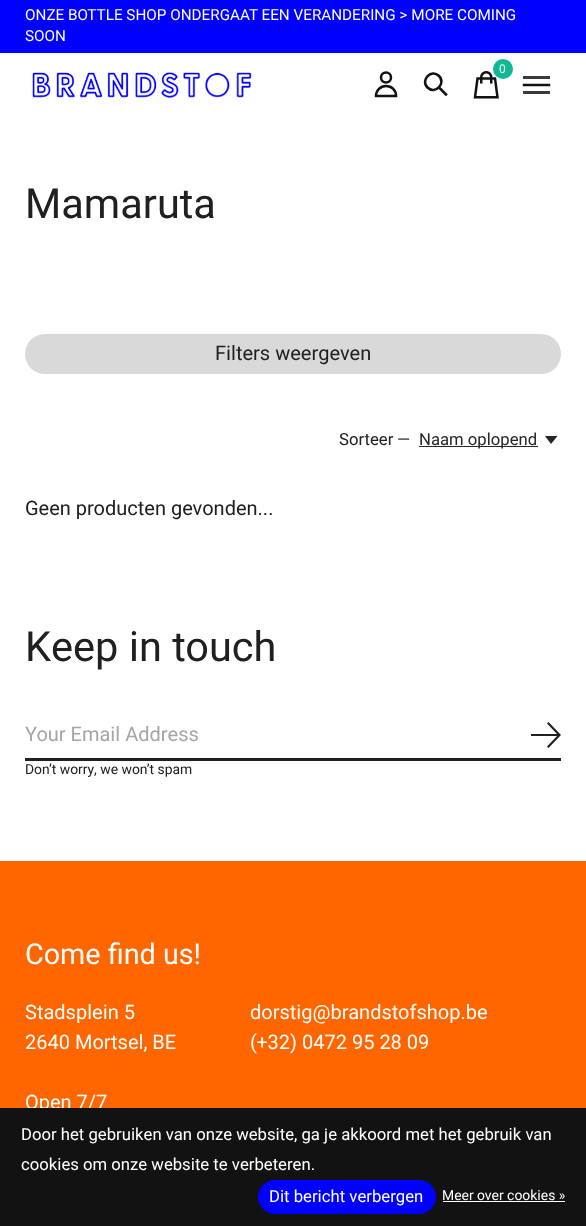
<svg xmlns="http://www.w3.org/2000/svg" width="586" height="1226">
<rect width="100%" height="100%" fill="#fff"/>
<rect width="586" height="53" fill="#00f"/>
<text x="25" y="20" style="font-family:Heebo;font-size:15.25px;fill:#fff">ONZE BOTTLE SHOP ONDERGAAT EEN VERANDERING &gt; MORE COMING</text>
<text x="25" y="41" style="font-family:Heebo;font-size:15.25px;fill:#fff">SOON</text>
<image x="473" y="71" width="26" height="28" href="media/1.png"/>
<circle cx="503" cy="69" r="10" fill="#0eb994"/>
<text x="499" y="73" style="font-family:Heebo;font-size:12px;fill:#fff">0</text>
<circle cx="386" cy="77.5" r="5" fill="none" stroke="#121212" stroke-width="2.5"/>
<path d="M386 86c-5.5 0-10 4.5-10 10h20c0-5.5-4-10-10-10z" fill="none" stroke="#121212" stroke-width="2.5" stroke-linecap="square"/>
<path d="M439 87.5l7 7m-7-18.5c7.5 7.5-4 19-11.5 11.5c-7.5-7.5 4-19 11.5-11.5" fill="none" stroke="#121212" stroke-width="2.5" stroke-linecap="square"/>
<rect x="523" y="76" width="27" height="3" fill="#3a3a3a"/>
<path d="M524 85h25" fill="none" stroke="#121212" stroke-width="2.5" stroke-linecap="square"/>
<rect x="523" y="91" width="27" height="3" fill="#3a3a3a"/>
<image x="32" y="72" width="220" height="26" href="media/2.png"/>
<text x="25" y="218" style="font-family:Heebo;font-size:41.5px;fill:#202020">Mamaruta</text>
<rect x="25" y="334" width="536" height="40" rx="20" fill="#d9d9d9"/>
<text x="215" y="360" style="font-family:Heebo;font-size:20px;fill:#202020">Filters weergeven</text>
<text x="339" y="445" style="font-family:Heebo;font-size:16.7px;fill:#202020">Sorteer —</text>
<rect x="419" y="446" width="119" height="1" fill="#262626"/>
<text x="419" y="445" style="font-family:Heebo;font-size:16.7px;fill:#262626">Naam oplopend</text>
<path d="M545 436l6 8l6.5-8z" fill="#262626"/>
<text x="25" y="515" style="font-family:Heebo;font-size:20px;fill:#202020">Geen producten gevonden...</text>
<text x="25" y="661" style="font-family:Heebo;font-size:41.5px;fill:#202020">Keep in touch</text>
<rect x="25" y="758" width="536" height="3" fill="#202020"/>
<text x="25" y="741" style="font-family:Heebo;font-size:20px;fill:#a5a5a5">Your Email Address</text>
<path d="M548.5 748l12.5-13l-12.5-13l-1.5 1.5l10 10.5h-26v2h26l-10 10.5z" fill="#202020"/>
<text x="25" y="774" style="font-family:Heebo;font-size:13.9px;fill:#202020">Don’t worry, we won’t spam</text>
<rect y="861" width="586" height="247" fill="#f60"/>
<text x="25" y="964" style="font-family:Heebo;font-size:28.75px;fill:#fff">Come find us!</text>
<text x="25" y="1019" style="font-family:Heebo;font-size:20px;fill:#fff">Stadsplein 5</text>
<text x="25" y="1049" style="font-family:Heebo;font-size:20px;fill:#fff">2640 Mortsel, BE</text>
<text x="25" y="1109" style="font-family:Heebo;font-size:20px;fill:#fff">Open 7/7</text>
<text x="250" y="1019" style="font-family:Heebo;font-size:20px;fill:#fff">dorstig@brandstofshop.be</text>
<text x="250" y="1049" style="font-family:Heebo;font-size:20px;fill:#fff">(+32) 0472 95 28 09</text>
<rect y="1108" width="586" height="118" fill="#121212"/>
<text x="21" y="1140" style="font-family:Heebo;font-size:16.7px;fill:#fff">Door het gebruiken van onze website, ga je akkoord met het gebruik van</text>
<text x="21" y="1170" style="font-family:Heebo;font-size:16.7px;fill:#fff">cookies om onze website te verbeteren.</text>
<rect x="258" y="1180" width="178" height="34" rx="17" fill="#00f"/>
<text x="269" y="1202" style="font-family:Heebo;font-size:16.7px;fill:#fff">Dit bericht verbergen</text>
<text x="442" y="1200" style="font-family:Heebo;font-size:13.9px;fill:#fff">Meer over cookies »</text>
<rect x="443" y="1201" width="122" height="1" fill="#fff"/>
</svg>
